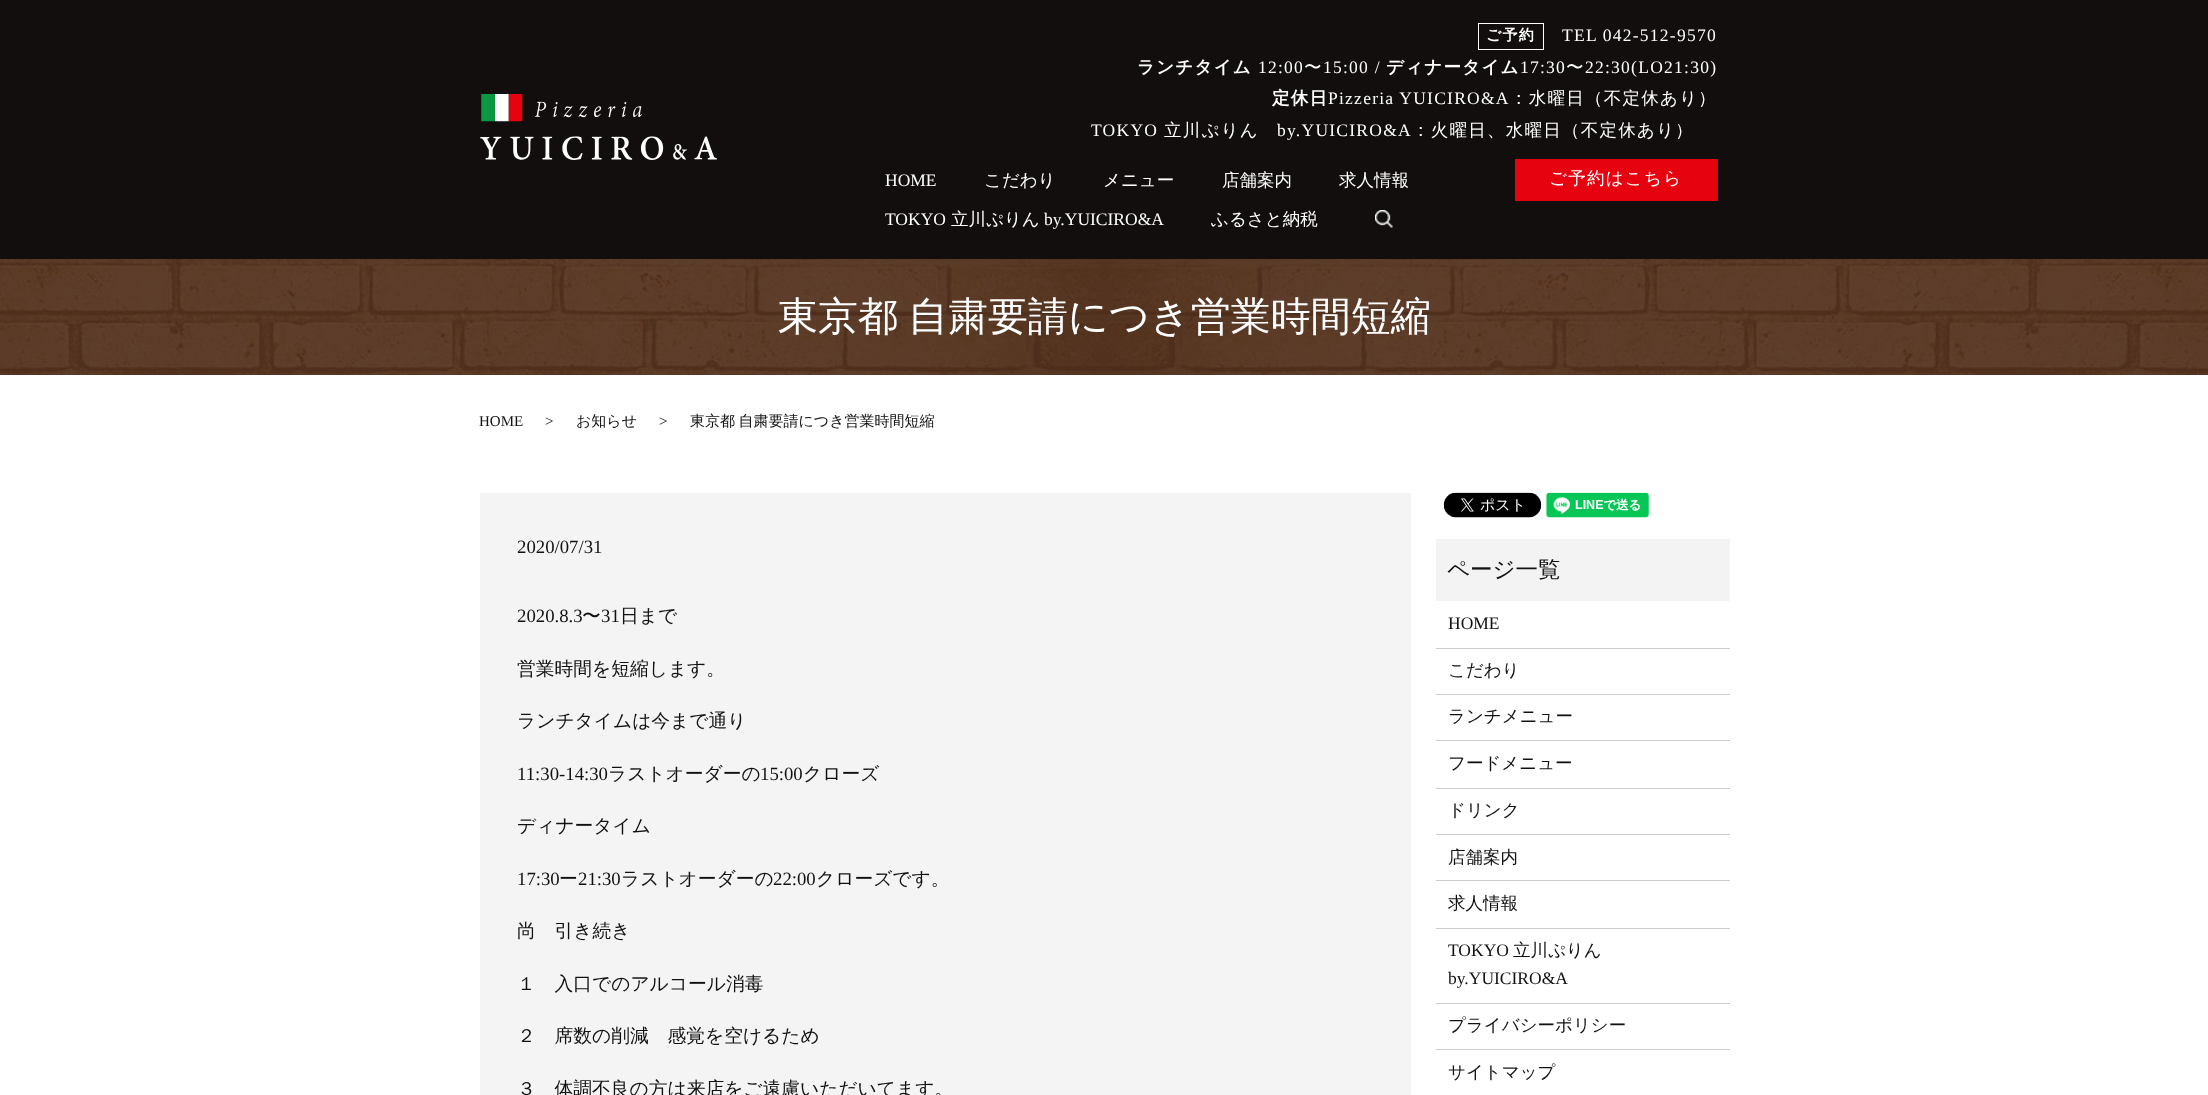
<svg xmlns="http://www.w3.org/2000/svg" width="2208" height="1095">
<rect width="100%" height="100%" fill="#fff"/>
<rect width="2208" height="259" fill="#110e0d"/>
<image x="480" y="94" width="237" height="66" href="media/1.png"/>
<rect x="1478.5" y="23.5" width="65" height="26" fill="none" stroke="#fff"/>
<text x="1486" y="40" style="font-family:WenQuanYi Zen Hei;font-size:15px;font-weight:bold;letter-spacing:1.25px;fill:#fff">ご予約</text>
<text x="1562" y="41" style="font-family:Liberation Serif;font-size:17.5px;letter-spacing:1.25px;fill:#fff">TEL 042-512-9570</text>
<text x="1137" y="73" style="font-family:WenQuanYi Zen Hei;font-size:17.5px;font-weight:bold;letter-spacing:1.25px;fill:#fff">ランチタイム</text>
<text x="1258" y="73" style="font-family:Liberation Serif;font-size:17.5px;letter-spacing:1.25px;fill:#fff">12:00</text>
<text x="1304" y="73" style="font-family:WenQuanYi Zen Hei;font-size:17.5px;font-weight:500;letter-spacing:1.25px;fill:#fff">〜</text>
<text x="1323" y="73" style="font-family:Liberation Serif;font-size:17.5px;letter-spacing:1.25px;fill:#fff">15:00 /</text>
<text x="1386" y="73" style="font-family:WenQuanYi Zen Hei;font-size:17.5px;font-weight:bold;letter-spacing:1.25px;fill:#fff">ディナータイム</text>
<text x="1520" y="73" style="font-family:Liberation Serif;font-size:17.5px;letter-spacing:1.25px;fill:#fff">17:30</text>
<text x="1566" y="73" style="font-family:WenQuanYi Zen Hei;font-size:17.5px;font-weight:500;letter-spacing:1.25px;fill:#fff">〜</text>
<text x="1585" y="73" style="font-family:Liberation Serif;font-size:17.5px;letter-spacing:1.25px;fill:#fff">22:30(LO21:30)</text>
<text x="1272" y="104" style="font-family:WenQuanYi Zen Hei;font-size:17.5px;font-weight:bold;letter-spacing:1.25px;fill:#fff">定休日</text>
<text x="1328" y="104" style="font-family:Liberation Serif;font-size:17.5px;letter-spacing:1.25px;fill:#fff">Pizzeria YUICIRO&amp;A</text>
<text x="1510" y="104" style="font-family:WenQuanYi Zen Hei;font-size:17.5px;font-weight:500;letter-spacing:1.25px;fill:#fff">：水曜日（不定休あり）</text>
<text x="1091" y="136" style="font-family:Liberation Serif;font-size:17.5px;letter-spacing:1.25px;fill:#fff">TOKYO</text>
<text x="1164" y="136" style="font-family:WenQuanYi Zen Hei;font-size:17.5px;font-weight:500;letter-spacing:1.25px;fill:#fff">立川ぷりん</text>
<text x="1277" y="136" style="font-family:Liberation Serif;font-size:17.5px;letter-spacing:1.25px;fill:#fff">by.YUICIRO&amp;A</text>
<text x="1412" y="136" style="font-family:WenQuanYi Zen Hei;font-size:17.5px;font-weight:500;letter-spacing:1.25px;fill:#fff">：火曜日、水曜日（不定休あり）</text>
<rect x="1515" y="159" width="203" height="42" fill="#e6020f"/>
<text x="1549" y="184" style="font-family:WenQuanYi Zen Hei;font-size:17.5px;font-weight:500;letter-spacing:1.25px;fill:#fff">ご予約はこちら</text>
<text x="885" y="186" style="font-family:Liberation Serif;font-size:17.5px;fill:#fff">HOME</text>
<text x="984" y="186" style="font-family:WenQuanYi Zen Hei;font-size:17.5px;font-weight:500;fill:#fff">こだわり</text>
<text x="1103" y="186" style="font-family:WenQuanYi Zen Hei;font-size:17.5px;font-weight:500;fill:#fff">メニュー</text>
<text x="1222" y="186" style="font-family:WenQuanYi Zen Hei;font-size:17.5px;font-weight:500;fill:#fff">店舗案内</text>
<text x="1339" y="186" style="font-family:WenQuanYi Zen Hei;font-size:17.5px;font-weight:500;fill:#fff">求人情報</text>
<text x="885" y="225" style="font-family:Liberation Serif;font-size:17.5px;fill:#fff">TOKYO</text>
<text x="951" y="225" style="font-family:WenQuanYi Zen Hei;font-size:17.5px;font-weight:500;fill:#fff">立川ぷりん</text>
<text x="1044" y="225" style="font-family:Liberation Serif;font-size:17.5px;fill:#fff">by.YUICIRO&amp;A</text>
<text x="1211" y="225" style="font-family:WenQuanYi Zen Hei;font-size:17.5px;font-weight:500;fill:#fff">ふるさと納税</text>
<image x="1375" y="210" width="18" height="18" href="media/2.png"/>
<image x="0" y="259" width="2208" height="116" href="media/3.png"/>
<text x="778" y="330" word-spacing="-2" style="font-family:WenQuanYi Zen Hei;font-size:40px;font-weight:500;fill:#fff">東京都 自粛要請につき営業時間短縮</text>
<text x="479" y="426" style="font-family:Liberation Serif;font-size:15px;fill:#111">HOME</text>
<text x="545" y="426" style="font-family:Liberation Serif;font-size:15px;fill:#111">&gt;</text>
<text x="576" y="426" style="font-family:WenQuanYi Zen Hei;font-size:15px;font-weight:500;fill:#111">お知らせ</text>
<text x="659" y="426" style="font-family:Liberation Serif;font-size:15px;fill:#111">&gt;</text>
<text x="690" y="426" word-spacing="-1" style="font-family:WenQuanYi Zen Hei;font-size:15px;font-weight:500;fill:#111">東京都 自粛要請につき営業時間短縮</text>
<rect x="480" y="493" width="931" height="602" fill="#f4f4f4"/>
<text x="517" y="553" style="font-family:Liberation Serif;font-size:18.75px;fill:#111">2020/07/31</text>
<text x="517" y="622" style="font-family:Liberation Serif;font-size:18.75px;fill:#111">2020.8.3</text>
<text x="582" y="622" style="font-family:WenQuanYi Zen Hei;font-size:18.75px;font-weight:500;fill:#111">〜</text>
<text x="601" y="622" style="font-family:Liberation Serif;font-size:18.75px;fill:#111">31</text>
<text x="620" y="622" style="font-family:WenQuanYi Zen Hei;font-size:18.75px;font-weight:500;fill:#111">日まで</text>
<text x="517" y="675" style="font-family:WenQuanYi Zen Hei;font-size:18.75px;font-weight:500;fill:#111">営業時間を短縮します。</text>
<text x="517" y="727" style="font-family:WenQuanYi Zen Hei;font-size:18.75px;font-weight:500;fill:#111">ランチタイムは今まで通り</text>
<text x="517" y="780" style="font-family:Liberation Serif;font-size:18.75px;fill:#111">11:30-14:30</text>
<text x="608" y="780" style="font-family:WenQuanYi Zen Hei;font-size:18.75px;font-weight:500;fill:#111">ラストオーダーの</text>
<text x="760" y="780" style="font-family:Liberation Serif;font-size:18.75px;fill:#111">15:00</text>
<text x="803" y="780" style="font-family:WenQuanYi Zen Hei;font-size:18.75px;font-weight:500;fill:#111">クローズ</text>
<text x="517" y="832" style="font-family:WenQuanYi Zen Hei;font-size:18.75px;font-weight:500;fill:#111">ディナータイム</text>
<text x="517" y="885" style="font-family:Liberation Serif;font-size:18.75px;fill:#111">17:30</text>
<text x="559" y="885" style="font-family:WenQuanYi Zen Hei;font-size:18.75px;font-weight:500;fill:#111">ー</text>
<text x="578" y="885" style="font-family:Liberation Serif;font-size:18.75px;fill:#111">21:30</text>
<text x="621" y="885" style="font-family:WenQuanYi Zen Hei;font-size:18.75px;font-weight:500;fill:#111">ラストオーダーの</text>
<text x="773" y="885" style="font-family:Liberation Serif;font-size:18.75px;fill:#111">22:00</text>
<text x="816" y="885" style="font-family:WenQuanYi Zen Hei;font-size:18.75px;font-weight:500;fill:#111">クローズです。</text>
<text x="517" y="937" style="font-family:WenQuanYi Zen Hei;font-size:18.75px;font-weight:500;fill:#111">尚　引き続き</text>
<text x="517" y="990" style="font-family:WenQuanYi Zen Hei;font-size:18.75px;font-weight:500;fill:#111">１　入口でのアルコール消毒</text>
<text x="517" y="1042" style="font-family:WenQuanYi Zen Hei;font-size:18.75px;font-weight:500;fill:#111">２　席数の削減　感覚を空けるため</text>
<text x="517" y="1095" style="font-family:WenQuanYi Zen Hei;font-size:18.75px;font-weight:500;fill:#111">３　体調不良の方は来店をご遠慮いただいてます。</text>
<image x="1443" y="492" width="99" height="26" href="media/4.png"/>
<image x="1546" y="492" width="103" height="26" href="media/5.png"/>
<rect x="1436" y="539" width="294" height="62" fill="#f3f3f3"/>
<text x="1447" y="577" style="font-family:WenQuanYi Zen Hei;font-size:22.5px;font-weight:500;fill:#111">ページ一覧</text>
<rect x="1436" y="648" width="294" height="1" fill="#ccc"/>
<text x="1448" y="629" style="font-family:Liberation Serif;font-size:17.5px;fill:#111">HOME</text>
<rect x="1436" y="694" width="294" height="1" fill="#ccc"/>
<text x="1448" y="676" style="font-family:WenQuanYi Zen Hei;font-size:17.5px;font-weight:500;fill:#111">こだわり</text>
<rect x="1436" y="740" width="294" height="1" fill="#ccc"/>
<text x="1448" y="722" style="font-family:WenQuanYi Zen Hei;font-size:17.5px;font-weight:500;fill:#111">ランチメニュー</text>
<rect x="1436" y="788" width="294" height="1" fill="#ccc"/>
<text x="1448" y="769" style="font-family:WenQuanYi Zen Hei;font-size:17.5px;font-weight:500;fill:#111">フードメニュー</text>
<rect x="1436" y="834" width="294" height="1" fill="#ccc"/>
<text x="1448" y="816" style="font-family:WenQuanYi Zen Hei;font-size:17.5px;font-weight:500;fill:#111">ドリンク</text>
<rect x="1436" y="880" width="294" height="1" fill="#ccc"/>
<text x="1448" y="863" style="font-family:WenQuanYi Zen Hei;font-size:17.5px;font-weight:500;fill:#111">店舗案内</text>
<rect x="1436" y="928" width="294" height="1" fill="#ccc"/>
<text x="1448" y="909" style="font-family:WenQuanYi Zen Hei;font-size:17.5px;font-weight:500;fill:#111">求人情報</text>
<rect x="1436" y="1003" width="294" height="1" fill="#ccc"/>
<text x="1448" y="956" style="font-family:Liberation Serif;font-size:17.5px;fill:#111">TOKYO</text>
<text x="1513" y="956" style="font-family:WenQuanYi Zen Hei;font-size:17.5px;font-weight:500;fill:#111">立川ぷりん</text>
<text x="1448" y="984" style="font-family:Liberation Serif;font-size:17.5px;fill:#111">by.YUICIRO&amp;A</text>
<rect x="1436" y="1049" width="294" height="1" fill="#ccc"/>
<text x="1448" y="1031" style="font-family:WenQuanYi Zen Hei;font-size:17.5px;font-weight:500;fill:#111">プライバシーポリシー</text>
<text x="1448" y="1078" style="font-family:WenQuanYi Zen Hei;font-size:17.5px;font-weight:500;fill:#111">サイトマップ</text>
</svg>
